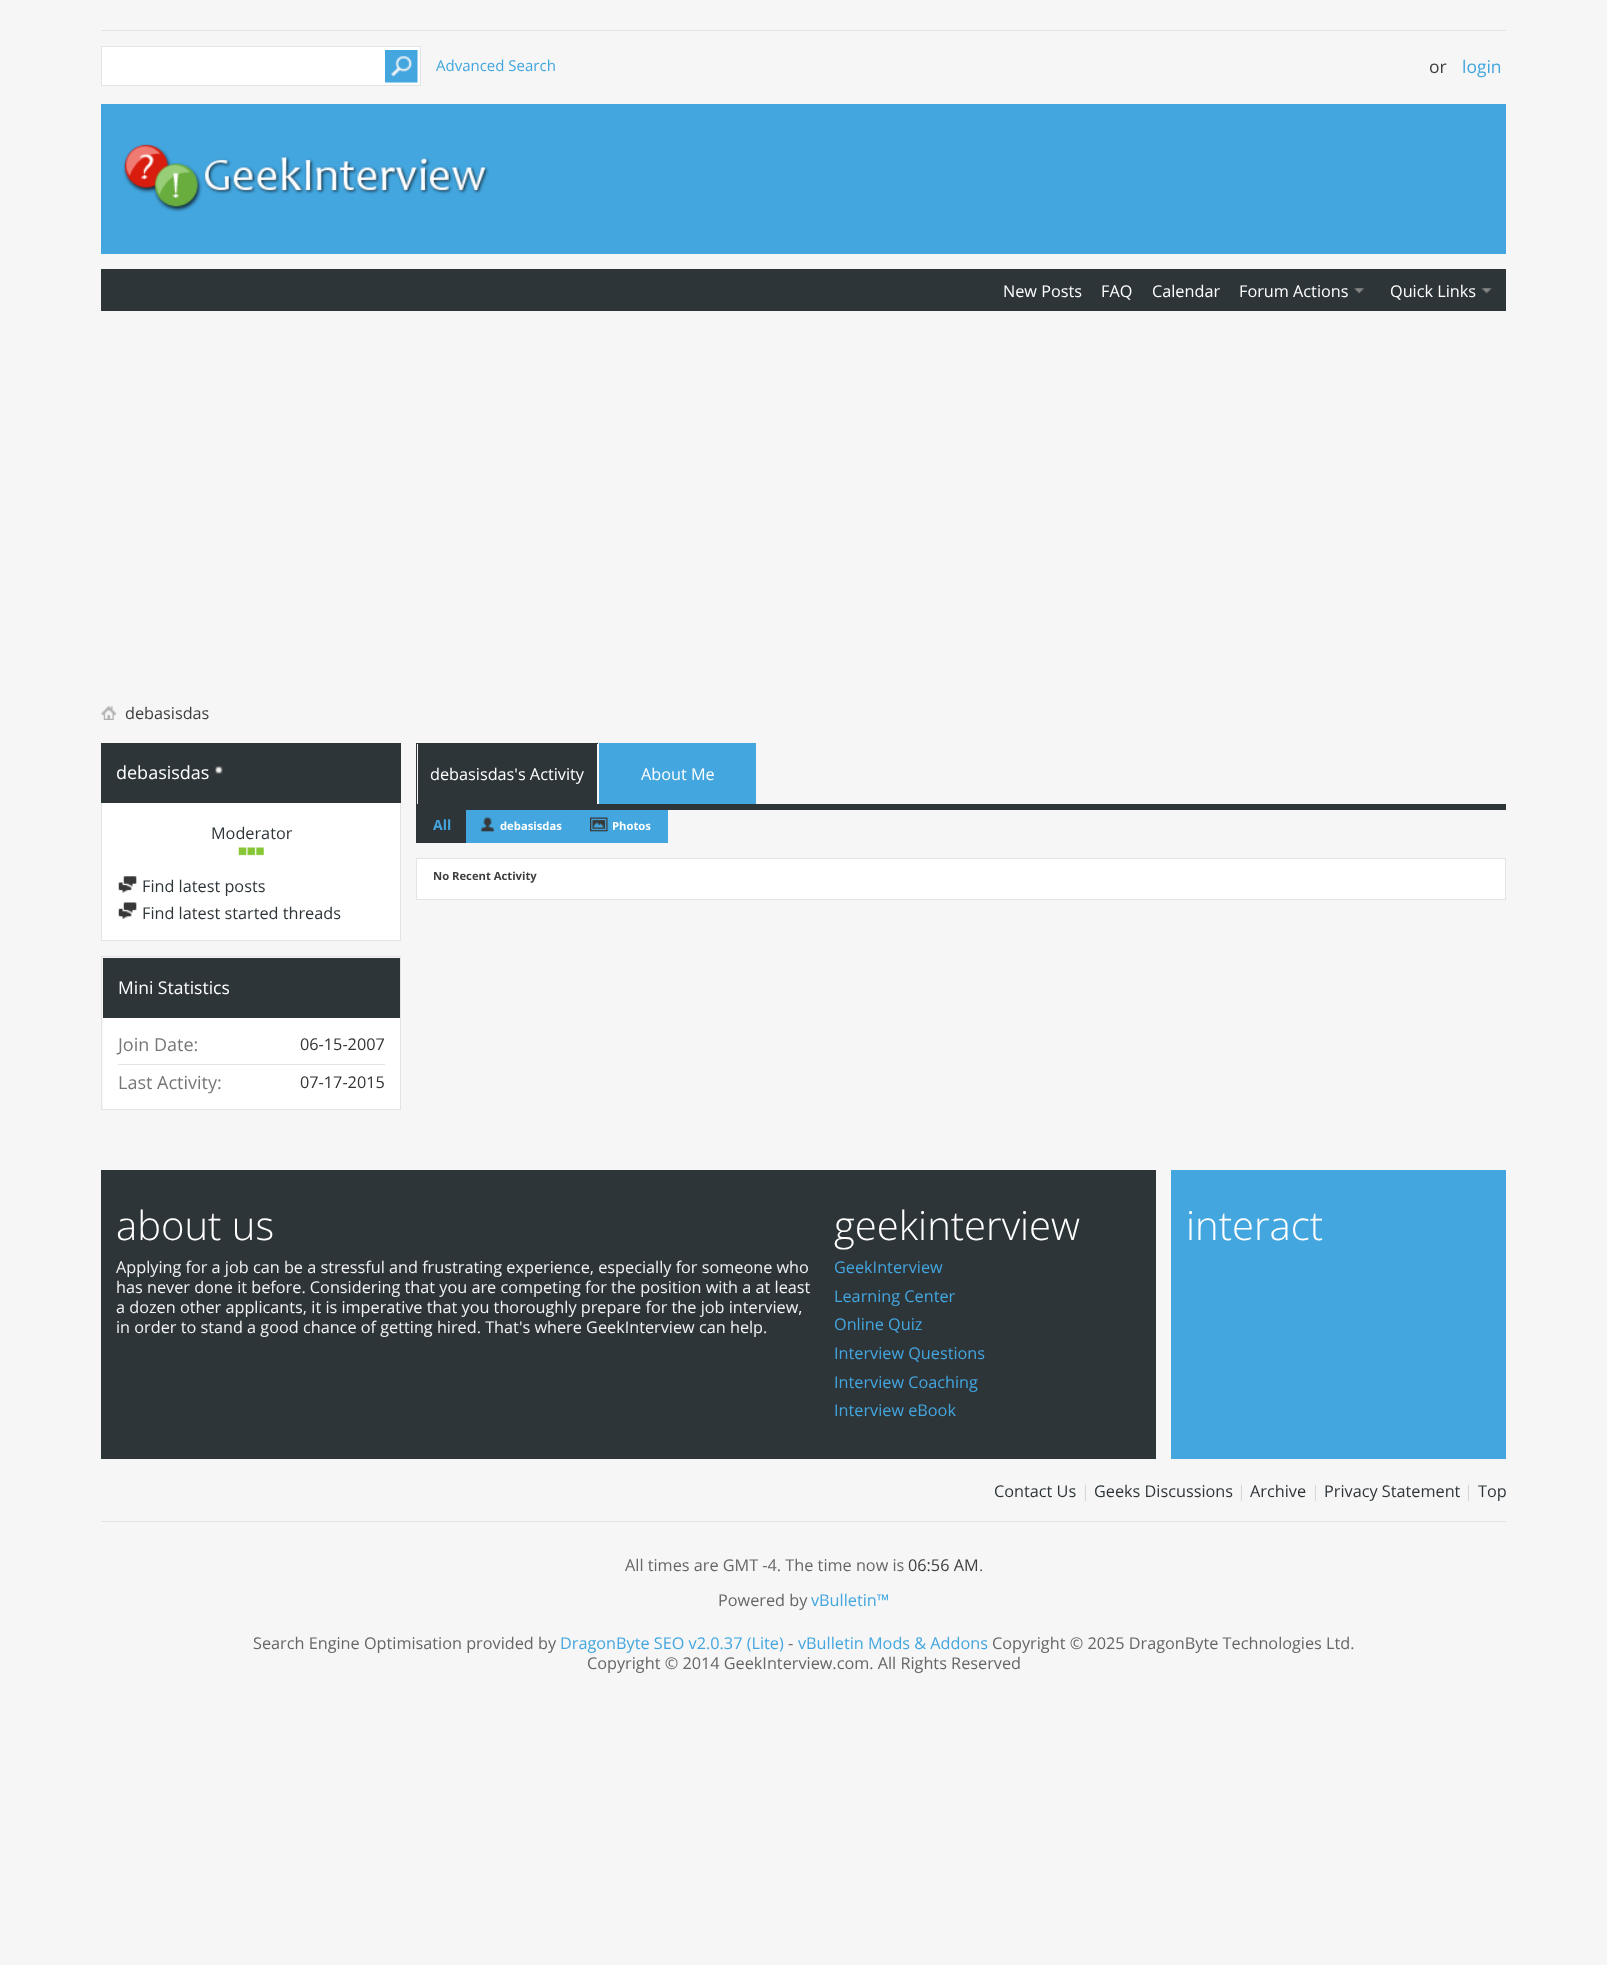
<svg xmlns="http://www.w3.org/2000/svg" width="1607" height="1965">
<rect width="100%" height="100%" fill="#f6f6f6"/>
<rect x="101" y="30" width="1405" height="1" fill="#e4e4e4"/>
<rect x="101.5" y="46.5" width="319" height="39" fill="#fff" stroke="#e4e4e4"/>
<image x="385" y="50" width="33" height="33" href="media/1.png"/>
<text x="436" y="71" style="font-family:Open Sans;font-size:15px;fill:#43a6df">Advanced Search</text>
<text x="1429" y="73" style="font-family:Open Sans;font-size:17.5px;fill:#3e3e3e">or</text>
<text x="1462" y="73" style="font-family:Open Sans;font-size:17.5px;fill:#43a6df">login</text>
<rect x="101" y="104" width="1405" height="150" fill="#43a6df"/>
<image x="123" y="144" width="366" height="68" href="media/2.png"/>
<rect x="101" y="269" width="1405" height="42" fill="#2e3539"/>
<text x="1003" y="297" style="font-family:Open Sans;font-size:16.25px;fill:#fff">New Posts</text>
<text x="1101" y="297" style="font-family:Open Sans;font-size:16.25px;fill:#fff">FAQ</text>
<text x="1152" y="297" style="font-family:Open Sans;font-size:16.25px;fill:#fff">Calendar</text>
<text x="1239" y="297" style="font-family:Open Sans;font-size:16.25px;fill:#fff">Forum Actions</text>
<image x="1353" y="288" width="11" height="6" href="media/3.png"/>
<text x="1390" y="297" style="font-family:Open Sans;font-size:16.25px;fill:#fff">Quick Links</text>
<image x="1481" y="288" width="11" height="6" href="media/4.png"/>
<image x="101" y="706" width="16" height="14" href="media/5.png"/>
<text x="125" y="719" style="font-family:Open Sans;font-size:16.25px;fill:#3e3e3e">debasisdas</text>
<rect x="101" y="743" width="300" height="60" fill="#2e3539"/>
<text x="116" y="779" style="font-family:Open Sans;font-size:18px;fill:#fff">debasisdas</text>
<image x="215" y="766" width="8" height="8" href="media/6.png"/>
<rect x="102" y="803" width="298" height="137" fill="#fff"/>
<rect x="400" y="803" width="1" height="138" fill="#e4e4e4"/>
<rect x="101" y="940" width="300" height="1" fill="#e4e4e4"/>
<rect x="101" y="803" width="1" height="138" fill="#e4e4e4"/>
<text x="211" y="839" style="font-family:Open Sans;font-size:16.25px;fill:#2e3539">Moderator</text>
<image x="238" y="847" width="9" height="9" href="media/7.png"/>
<image x="247" y="847" width="9" height="9" href="media/8.png"/>
<image x="256" y="847" width="8" height="9" href="media/9.png"/>
<image x="118" y="876" width="19" height="17" href="media/10.png"/>
<text x="142" y="892" style="font-family:Open Sans;font-size:16.25px;fill:#2e3539">Find latest posts</text>
<image x="118" y="902" width="19" height="17" href="media/11.png"/>
<text x="142" y="919" style="font-family:Open Sans;font-size:16.25px;fill:#2e3539">Find latest started threads</text>
<rect x="101.5" y="956.5" width="299" height="153" fill="none" stroke="#e4e4e4"/>
<rect x="103" y="958" width="297" height="60" fill="#2e3539"/>
<text x="118" y="994" style="font-family:Open Sans;font-size:17.5px;fill:#fff">Mini Statistics</text>
<rect x="103" y="1018" width="297" height="91" fill="#fff"/>
<rect x="118" y="1064" width="267" height="1" fill="#e4e4e4"/>
<text x="118" y="1051" style="font-family:Open Sans;font-size:18px;fill:#777">Join Date:</text>
<text x="300" y="1050" style="font-family:Open Sans;font-size:16.25px;fill:#333">06-15-2007</text>
<text x="118" y="1089" style="font-family:Open Sans;font-size:18px;fill:#777">Last Activity:</text>
<text x="300" y="1088" style="font-family:Open Sans;font-size:16.25px;fill:#333">07-17-2015</text>
<rect x="418" y="744" width="178" height="60" fill="#2e3539"/>
<rect x="416" y="743" width="182" height="1" fill="#2e3539"/>
<rect x="596" y="743" width="1" height="61" fill="#2e3539"/>
<rect x="416" y="743" width="1" height="61" fill="#2e3539"/>
<text x="430" y="780" style="font-family:Open Sans;font-size:16.25px;fill:#fff">debasisdas's Activity</text>
<rect x="600" y="744" width="155" height="60" fill="#43a6df"/>
<rect x="599" y="743" width="157" height="1" fill="#43a6df"/>
<rect x="755" y="743" width="1" height="61" fill="#43a6df"/>
<rect x="599" y="743" width="1" height="61" fill="#43a6df"/>
<text x="641" y="780" style="font-family:Open Sans;font-size:16.25px;fill:#fff">About Me</text>
<rect x="416" y="804" width="1090" height="6" fill="#2e3539"/>
<rect x="416" y="810" width="50" height="33" fill="#2e3539"/>
<text x="433" y="830" style="font-family:Open Sans;font-size:14px;font-weight:bold;fill:#43a6df">All</text>
<rect x="466" y="810" width="202" height="33" fill="#43a6df"/>
<image x="481" y="817" width="13" height="15" href="media/12.png"/>
<text x="500" y="830" style="font-family:Open Sans;font-size:11.25px;font-weight:bold;fill:#fff">debasisdas</text>
<image x="590" y="817" width="18" height="15" href="media/13.png"/>
<text x="612" y="830" style="font-family:Open Sans;font-size:11.25px;font-weight:bold;fill:#fff">Photos</text>
<rect x="416.5" y="858.5" width="1089" height="41" fill="#fff" stroke="#e4e4e4"/>
<text x="433" y="880" style="font-family:Open Sans;font-size:11.25px;font-weight:bold;fill:#3e3e3e">No Recent Activity</text>
<rect x="101" y="1170" width="1055" height="289" fill="#2e3539"/>
<text x="116" y="1240" style="font-family:Open Sans;font-size:40px;font-weight:300;fill:#fff">about us</text>
<text x="116" y="1273" style="font-family:Open Sans;font-size:16.25px;fill:#f2f2f2">Applying for a job can be a stressful and frustrating experience, especially for someone who</text>
<text x="116" y="1293" style="font-family:Open Sans;font-size:16.25px;fill:#f2f2f2">has never done it before. Considering that you are competing for the position with a at least</text>
<text x="116" y="1313" style="font-family:Open Sans;font-size:16.25px;fill:#f2f2f2">a dozen other applicants, it is imperative that you thoroughly prepare for the job interview,</text>
<text x="116" y="1333" style="font-family:Open Sans;font-size:16.25px;fill:#f2f2f2">in order to stand a good chance of getting hired. That's where GeekInterview can help.</text>
<text x="834" y="1240" style="font-family:Open Sans;font-size:40px;font-weight:300;fill:#fff">geekinterview</text>
<text x="834" y="1273" style="font-family:Open Sans;font-size:16.25px;fill:#43a6df">GeekInterview</text>
<text x="834" y="1302" style="font-family:Open Sans;font-size:16.25px;fill:#43a6df">Learning Center</text>
<text x="834" y="1330" style="font-family:Open Sans;font-size:16.25px;fill:#43a6df">Online Quiz</text>
<text x="834" y="1359" style="font-family:Open Sans;font-size:16.25px;fill:#43a6df">Interview Questions</text>
<text x="834" y="1388" style="font-family:Open Sans;font-size:16.25px;fill:#43a6df">Interview Coaching</text>
<text x="834" y="1416" style="font-family:Open Sans;font-size:16.25px;fill:#43a6df">Interview eBook</text>
<rect x="1171" y="1170" width="335" height="289" fill="#43a6df"/>
<text x="1186" y="1240" style="font-family:Open Sans;font-size:40px;font-weight:300;fill:#fff">interact</text>
<rect x="101" y="1521" width="1405" height="1" fill="#e4e4e4"/>
<text x="994" y="1497" style="font-family:Open Sans;font-size:16.25px;fill:#2e3539">Contact Us</text>
<text x="1081" y="1497" style="font-family:Open Sans;font-size:16.25px;fill:#d8d8d8">|</text>
<text x="1094" y="1497" style="font-family:Open Sans;font-size:16.25px;fill:#2e3539">Geeks Discussions</text>
<text x="1237" y="1497" style="font-family:Open Sans;font-size:16.25px;fill:#d8d8d8">|</text>
<text x="1250" y="1497" style="font-family:Open Sans;font-size:16.25px;fill:#2e3539">Archive</text>
<text x="1311" y="1497" style="font-family:Open Sans;font-size:16.25px;fill:#d8d8d8">|</text>
<text x="1324" y="1497" style="font-family:Open Sans;font-size:16.25px;fill:#2e3539">Privacy Statement</text>
<text x="1464" y="1497" style="font-family:Open Sans;font-size:16.25px;fill:#d8d8d8">|</text>
<text x="1478" y="1497" style="font-family:Open Sans;font-size:16.25px;fill:#2e3539">Top</text>
<text x="625" y="1571" style="font-family:Open Sans;font-size:16.25px;fill:#666">All times are GMT -4. The time now is</text>
<text x="908" y="1571" style="font-family:Open Sans;font-size:16.25px;fill:#3e3e3e">06:56 AM</text>
<text x="979" y="1571" style="font-family:Open Sans;font-size:16.25px;fill:#666">.</text>
<text x="718" y="1606" style="font-family:Open Sans;font-size:16.25px;fill:#666">Powered by</text>
<text x="811" y="1606" style="font-family:Open Sans;font-size:16.25px;fill:#43a6df">vBulletin™</text>
<text x="253" y="1649" style="font-family:Open Sans;font-size:16.25px;fill:#666">Search Engine Optimisation provided by</text>
<text x="560" y="1649" style="font-family:Open Sans;font-size:16.25px;fill:#43a6df">DragonByte SEO v2.0.37 (Lite)</text>
<text x="788" y="1649" style="font-family:Open Sans;font-size:16.25px;fill:#666">-</text>
<text x="798" y="1649" style="font-family:Open Sans;font-size:16.25px;fill:#43a6df">vBulletin Mods &amp; Addons</text>
<text x="992" y="1649" style="font-family:Open Sans;font-size:16.25px;fill:#666">Copyright © 2025 DragonByte Technologies Ltd.</text>
<text x="587" y="1669" style="font-family:Open Sans;font-size:16.25px;fill:#666">Copyright © 2014 GeekInterview.com. All Rights Reserved</text>
</svg>
